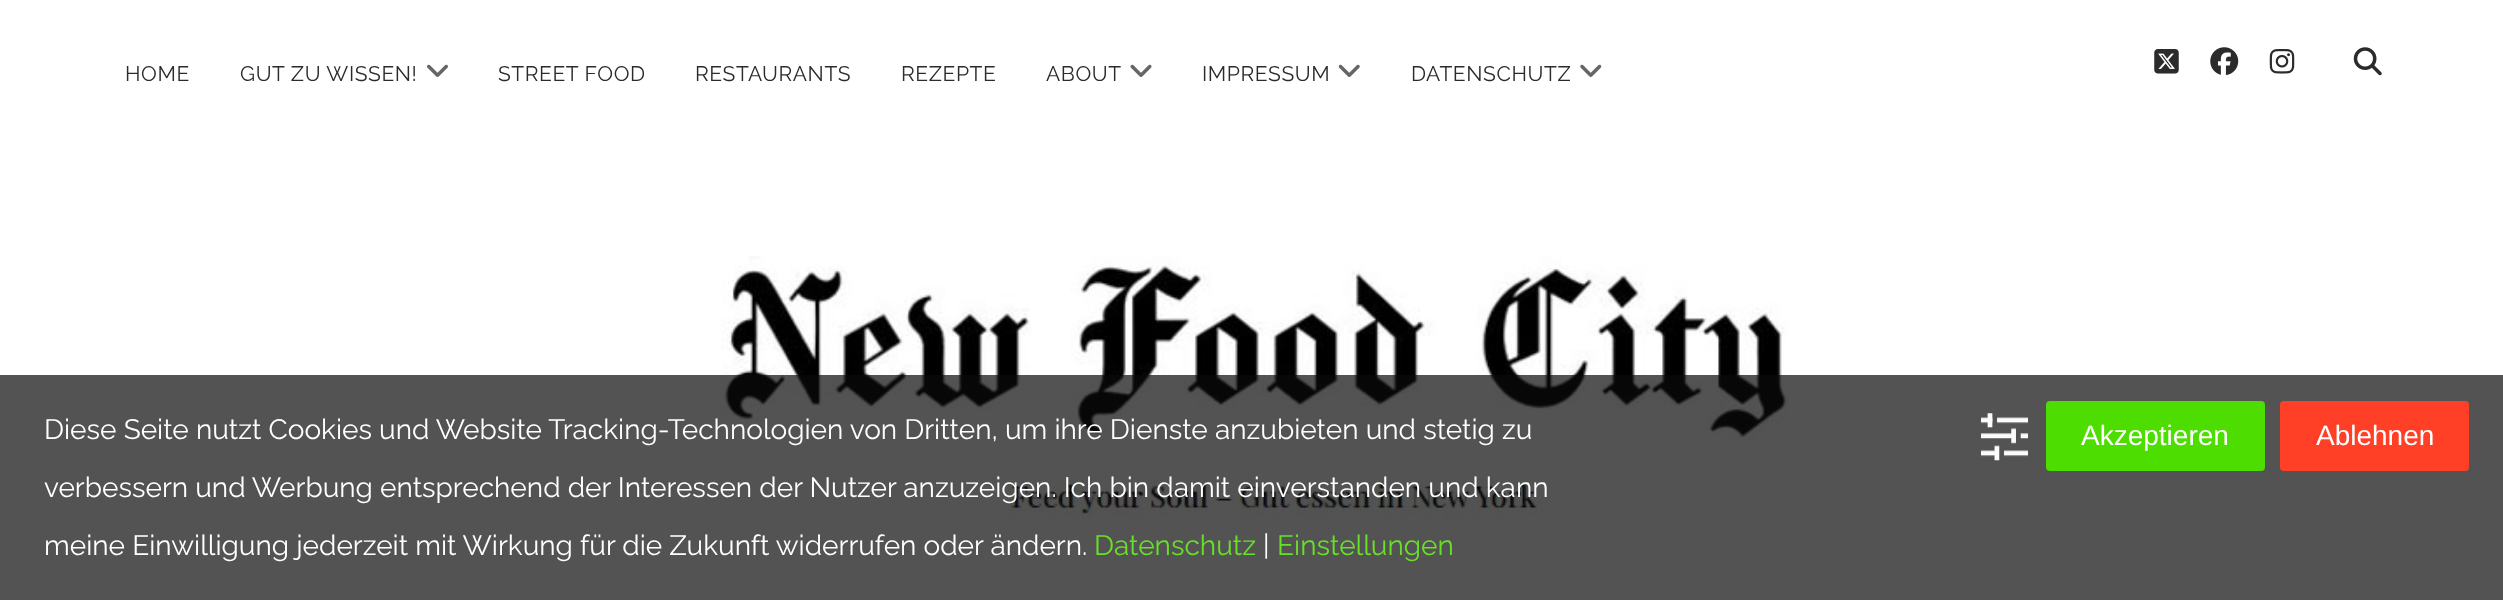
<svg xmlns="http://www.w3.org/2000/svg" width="2503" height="600">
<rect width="100%" height="100%" fill="#fff"/>
<text x="125" y="81" style="font-family:Raleway;font-size:21px;letter-spacing:0.6px;fill:#2b2b2b">HOME</text>
<text x="240" y="81" style="font-family:Raleway;font-size:21px;letter-spacing:0.6px;fill:#2b2b2b">GUT ZU WISSEN!</text>
<image x="427" y="64" width="21" height="13" href="media/1.png"/>
<text x="498" y="81" style="font-family:Raleway;font-size:21px;letter-spacing:0.6px;fill:#2b2b2b">STREET FOOD</text>
<text x="695" y="81" style="font-family:Raleway;font-size:21px;letter-spacing:0.6px;fill:#2b2b2b">RESTAURANTS</text>
<text x="901" y="81" style="font-family:Raleway;font-size:21px;letter-spacing:0.6px;fill:#2b2b2b">REZEPTE</text>
<text x="1046" y="81" style="font-family:Raleway;font-size:21px;letter-spacing:0.6px;fill:#2b2b2b">ABOUT</text>
<image x="1130" y="64" width="22" height="13" href="media/2.png"/>
<text x="1202" y="81" style="font-family:Raleway;font-size:21px;letter-spacing:0.6px;fill:#2b2b2b">IMPRESSUM</text>
<image x="1338" y="64" width="22" height="13" href="media/3.png"/>
<text x="1411" y="81" style="font-family:Raleway;font-size:21px;letter-spacing:0.6px;fill:#2b2b2b">DATENSCHUTZ</text>
<image x="1580" y="64" width="22" height="13" href="media/4.png"/>
<image x="2154" y="49" width="25" height="25" href="media/5.png"/>
<image x="2210" y="47" width="29" height="29" href="media/6.png"/>
<image x="2269" y="49" width="26" height="25" href="media/7.png"/>
<image x="2353" y="47" width="29" height="29" href="media/8.png"/>
<image x="721" y="256" width="1068" height="263" href="media/9.png"/>
<rect y="375" width="2503" height="225" fill="#0a0a0ab3"/>
<text x="44" y="439" style="font-family:Raleway;font-size:28px;fill:#fff">Diese Seite nutzt Cookies und Website Tracking-Technologien von Dritten, um ihre Dienste anzubieten und stetig zu</text>
<text x="44" y="497" style="font-family:Raleway;font-size:28px;fill:#fff">verbessern und Werbung entsprechend der Interessen der Nutzer anzuzeigen. Ich bin damit einverstanden und kann</text>
<text x="44" y="555" style="font-family:Raleway;font-size:28px;fill:#fff">meine Einwilligung jederzeit mit Wirkung für die Zukunft widerrufen oder ändern.</text>
<text x="1094" y="555" style="font-family:Raleway;font-size:28px;fill:#68e028">Datenschutz</text>
<text x="1263" y="555" style="font-family:Raleway;font-size:28px;fill:#fff">|</text>
<text x="1277" y="555" style="font-family:Raleway;font-size:28px;fill:#68e028">Einstellungen</text>
<image x="1981" y="413" width="47" height="48" href="media/10.png"/>
<rect x="2046" y="401" width="219" height="70" rx="4" fill="#4ddd00"/>
<text x="2081" y="445" style="font-family:Liberation Sans;font-size:28px;fill:#fff">Akzeptieren</text>
<rect x="2280" y="401" width="189" height="70" rx="4" fill="#ff3f26"/>
<text x="2316" y="445" style="font-family:Liberation Sans;font-size:28px;fill:#fff">Ablehnen</text>
</svg>
